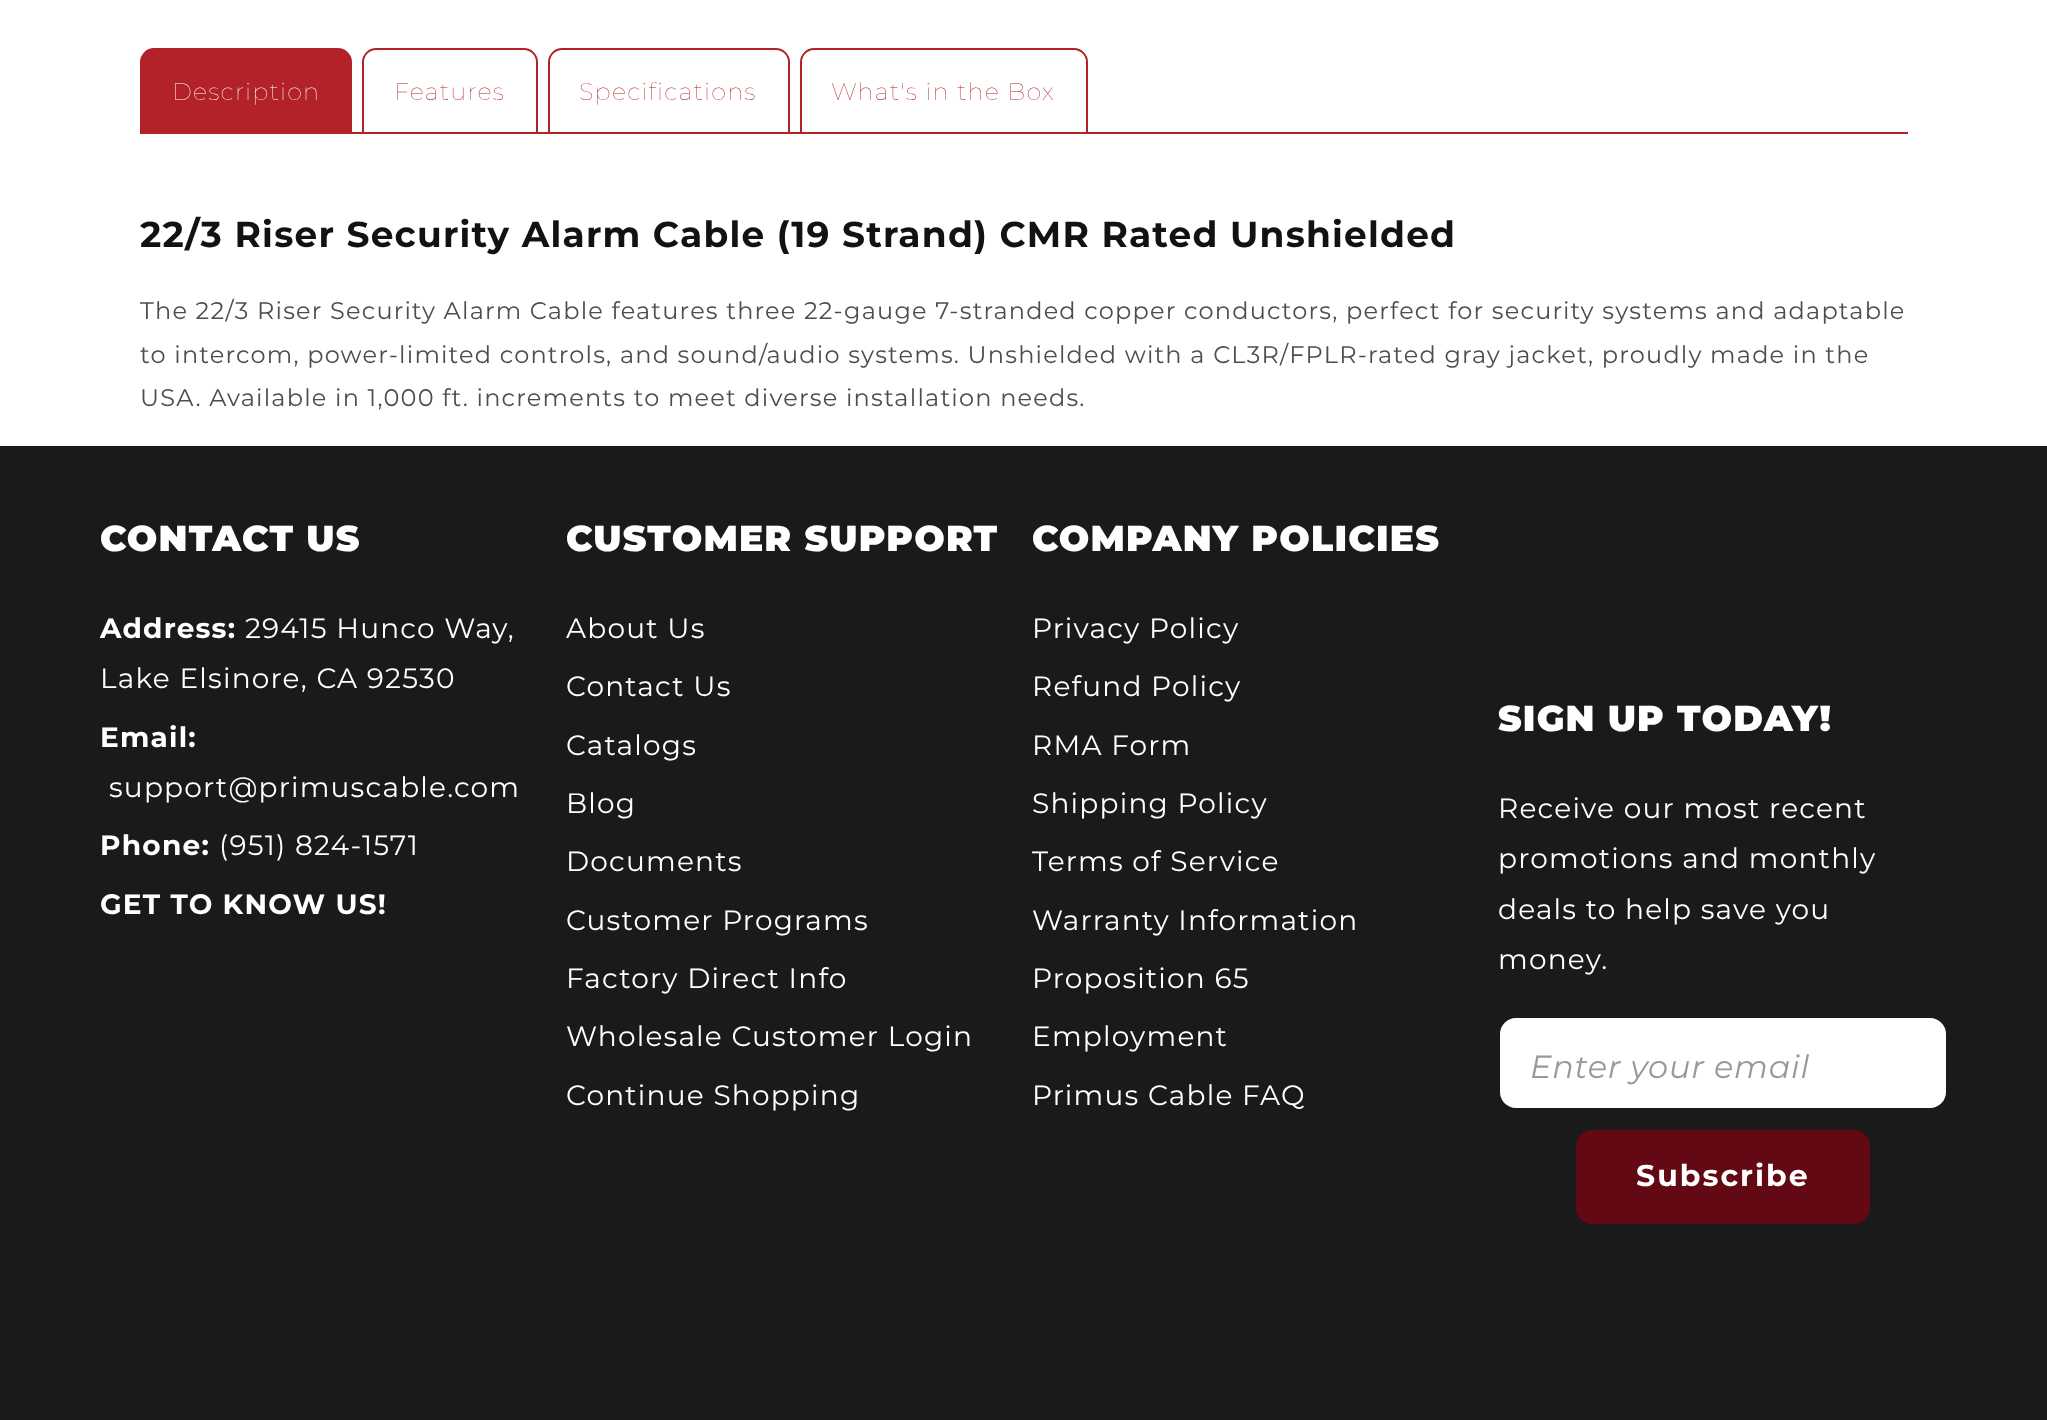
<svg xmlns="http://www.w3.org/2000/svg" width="2047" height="1420">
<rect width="100%" height="100%" fill="#fff"/>
<path d="M154 49h184c7 0 13 6 13 13v71h-210v-71c0-7 6-13 13-13z" fill="#b22228" stroke="#b22228" stroke-width="2"/>
<text x="172" y="100" style="font-family:Montserrat;font-size:24px;font-weight:100;letter-spacing:1.2px;fill:#fff">Description</text>
<rect x="352" y="132" width="1556" height="2" fill="#b22228"/>
<path d="M376 49h148c7 0 13 6 13 13v71h-174v-71c0-7 6-13 13-13z" fill="none" stroke="#b22228" stroke-width="2"/>
<text x="394" y="100" style="font-family:Montserrat;font-size:24px;font-weight:100;letter-spacing:1.2px;fill:#b22228">Features</text>
<path d="M562 49h214c7 0 13 6 13 13v71h-240v-71c0-7 6-13 13-13z" fill="none" stroke="#b22228" stroke-width="2"/>
<text x="579" y="100" style="font-family:Montserrat;font-size:24px;font-weight:100;letter-spacing:1.2px;fill:#b22228">Specifications</text>
<path d="M814 49h260c7 0 13 6 13 13v71h-286v-71c0-7 6-13 13-13z" fill="none" stroke="#b22228" stroke-width="2"/>
<text x="831" y="100" style="font-family:Montserrat;font-size:24px;font-weight:100;letter-spacing:1.2px;fill:#b22228">What's in the Box</text>
<text x="140" y="247" style="font-family:Montserrat;font-size:36px;font-weight:bold;letter-spacing:1.2px;fill:#121212">22/3 Riser Security Alarm Cable (19 Strand) CMR Rated Unshielded</text>
<text x="140" y="319" style="font-family:Montserrat;font-size:24px;letter-spacing:1.2px;fill:#4d4d4d">The 22/3 Riser Security Alarm Cable features three 22-gauge 7-stranded copper conductors, perfect for security systems and adaptable</text>
<text x="140" y="363" style="font-family:Montserrat;font-size:24px;letter-spacing:1.2px;fill:#4d4d4d">to intercom, power-limited controls, and sound/audio systems. Unshielded with a CL3R/FPLR-rated gray jacket, proudly made in the</text>
<text x="140" y="406" style="font-family:Montserrat;font-size:24px;letter-spacing:1.2px;fill:#4d4d4d">USA. Available in 1,000 ft. increments to meet diverse installation needs.</text>
<rect y="446" width="2047" height="974" fill="#1a1a1a"/>
<text x="100" y="551" style="font-family:Montserrat;font-size:36px;font-weight:900;letter-spacing:1.2px;fill:#fff">CONTACT US</text>
<text x="100" y="638" style="font-family:Montserrat;font-size:28px;font-weight:bold;letter-spacing:1.2px;fill:#fff">Address:</text>
<text x="245" y="638" style="font-family:Montserrat;font-size:28px;letter-spacing:1.2px;fill:#fff">29415 Hunco Way,</text>
<text x="100" y="688" style="font-family:Montserrat;font-size:28px;letter-spacing:1.2px;fill:#fff">Lake Elsinore, CA 92530</text>
<text x="100" y="747" style="font-family:Montserrat;font-size:28px;font-weight:bold;letter-spacing:1.2px;fill:#fff">Email:</text>
<text x="109" y="797" style="font-family:Montserrat;font-size:28px;letter-spacing:1.2px;fill:#fff">support@primuscable.com</text>
<text x="100" y="855" style="font-family:Montserrat;font-size:28px;font-weight:bold;letter-spacing:1.2px;fill:#fff">Phone:</text>
<text x="219" y="855" style="font-family:Montserrat;font-size:28px;letter-spacing:1.2px;fill:#fff">(951) 824-1571</text>
<text x="100" y="914" style="font-family:Montserrat;font-size:28px;font-weight:bold;letter-spacing:1.2px;fill:#fff">GET TO KNOW US!</text>
<text x="566" y="551" style="font-family:Montserrat;font-size:36px;font-weight:900;letter-spacing:1.2px;fill:#fff">CUSTOMER SUPPORT</text>
<text x="566" y="638" style="font-family:Montserrat;font-size:28px;letter-spacing:1.2px;fill:#fff">About Us</text>
<text x="566" y="696" style="font-family:Montserrat;font-size:28px;letter-spacing:1.2px;fill:#fff">Contact Us</text>
<text x="566" y="755" style="font-family:Montserrat;font-size:28px;letter-spacing:1.2px;fill:#fff">Catalogs</text>
<text x="566" y="813" style="font-family:Montserrat;font-size:28px;letter-spacing:1.2px;fill:#fff">Blog</text>
<text x="566" y="871" style="font-family:Montserrat;font-size:28px;letter-spacing:1.2px;fill:#fff">Documents</text>
<text x="566" y="930" style="font-family:Montserrat;font-size:28px;letter-spacing:1.2px;fill:#fff">Customer Programs</text>
<text x="566" y="988" style="font-family:Montserrat;font-size:28px;letter-spacing:1.2px;fill:#fff">Factory Direct Info</text>
<text x="566" y="1046" style="font-family:Montserrat;font-size:28px;letter-spacing:1.2px;fill:#fff">Wholesale Customer Login</text>
<text x="566" y="1105" style="font-family:Montserrat;font-size:28px;letter-spacing:1.2px;fill:#fff">Continue Shopping</text>
<text x="1032" y="551" style="font-family:Montserrat;font-size:36px;font-weight:900;letter-spacing:1.2px;fill:#fff">COMPANY POLICIES</text>
<text x="1032" y="638" style="font-family:Montserrat;font-size:28px;letter-spacing:1.2px;fill:#fff">Privacy Policy</text>
<text x="1032" y="696" style="font-family:Montserrat;font-size:28px;letter-spacing:1.2px;fill:#fff">Refund Policy</text>
<text x="1032" y="755" style="font-family:Montserrat;font-size:28px;letter-spacing:1.2px;fill:#fff">RMA Form</text>
<text x="1032" y="813" style="font-family:Montserrat;font-size:28px;letter-spacing:1.2px;fill:#fff">Shipping Policy</text>
<text x="1032" y="871" style="font-family:Montserrat;font-size:28px;letter-spacing:1.2px;fill:#fff">Terms of Service</text>
<text x="1032" y="930" style="font-family:Montserrat;font-size:28px;letter-spacing:1.2px;fill:#fff">Warranty Information</text>
<text x="1032" y="988" style="font-family:Montserrat;font-size:28px;letter-spacing:1.2px;fill:#fff">Proposition 65</text>
<text x="1032" y="1046" style="font-family:Montserrat;font-size:28px;letter-spacing:1.2px;fill:#fff">Employment</text>
<text x="1032" y="1105" style="font-family:Montserrat;font-size:28px;letter-spacing:1.2px;fill:#fff">Primus Cable FAQ</text>
<text x="1498" y="731" style="font-family:Montserrat;font-size:36px;font-weight:900;letter-spacing:1.2px;fill:#fff">SIGN UP TODAY!</text>
<text x="1498" y="818" style="font-family:Montserrat;font-size:28px;letter-spacing:1.2px;fill:#fff">Receive our most recent</text>
<text x="1498" y="868" style="font-family:Montserrat;font-size:28px;letter-spacing:1.2px;fill:#fff">promotions and monthly</text>
<text x="1498" y="919" style="font-family:Montserrat;font-size:28px;letter-spacing:1.2px;fill:#fff">deals to help save you</text>
<text x="1498" y="969" style="font-family:Montserrat;font-size:28px;letter-spacing:1.2px;fill:#fff">money.</text>
<rect x="1500" y="1018" width="446" height="90" rx="16" fill="#fff"/>
<text x="1530" y="1078" style="font-family:Montserrat;font-size:32px;font-style:italic;letter-spacing:0.75px;fill:#999">Enter your email</text>
<rect x="1576" y="1130" width="294" height="94" rx="16" fill="#620913"/>
<text x="1636" y="1186" style="font-family:Montserrat;font-size:30px;font-weight:bold;letter-spacing:2px;fill:#fff">Subscribe</text>
</svg>
